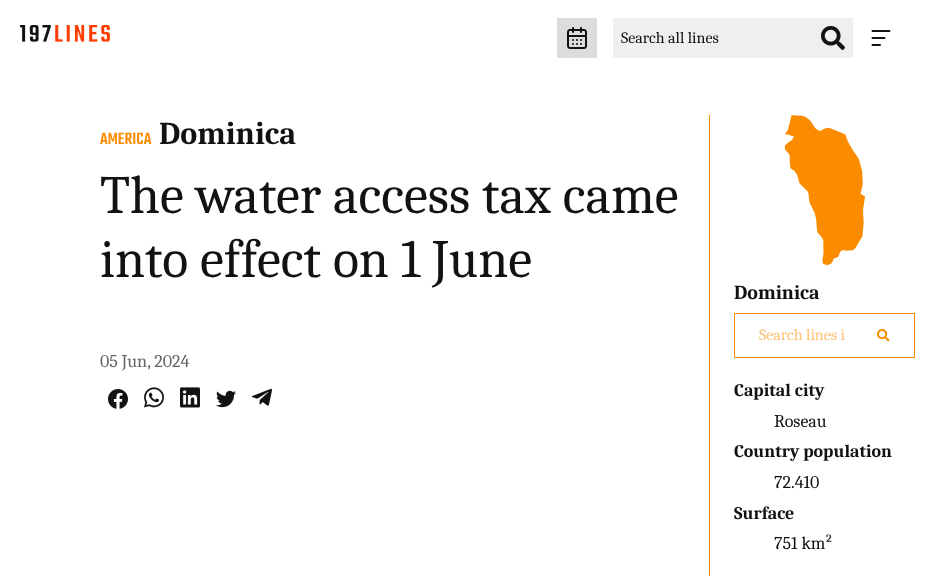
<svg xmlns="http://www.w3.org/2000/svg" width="931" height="576">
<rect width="100%" height="100%" fill="#fff"/>
<image x="20" y="25" width="90" height="17" href="media/1.png"/>
<rect x="557" y="18" width="40" height="40" fill="#dcdcdc"/>
<image x="567" y="27" width="20" height="22" href="media/2.png"/>
<rect x="613" y="18" width="240" height="40" fill="#efefef"/>
<text x="621" y="43" style="font-family:Caladea;font-size:16px;fill:#121212">Search all lines</text>
<image x="821" y="26" width="24" height="24" href="media/3.png"/>
<path d="M872.5 31h17m-17 7h12m-12 7h7.5" fill="none" stroke="#121212" stroke-width="1.9" stroke-linecap="round" stroke-linejoin="round"/>
<text x="100" y="144" style="font-family:Teko;font-size:18px;font-weight:300;fill:#fb8c00">AMERICA</text>
<text x="159" y="144" style="font-family:Caladea;font-size:32px;font-weight:bold;fill:#121212">Dominica</text>
<text x="100" y="213" style="font-family:Caladea;font-size:54px;fill:#121212">The water access tax came</text>
<text x="100" y="277" style="font-family:Caladea;font-size:54px;fill:#121212">into effect on 1 June</text>
<text x="100" y="367" style="font-family:Caladea;font-size:18px;fill:#646464">05 Jun, 2024</text>
<image x="108" y="389" width="20" height="20" href="media/4.png"/>
<image x="144" y="387" width="20" height="21" href="media/5.png"/>
<image x="180" y="387" width="20" height="21" href="media/6.png"/>
<image x="216" y="390" width="20" height="18" href="media/7.png"/>
<image x="252" y="388" width="20" height="18" href="media/8.png"/>
<rect x="709" y="115" width="1" height="461" fill="#fb8c00"/>
<image x="784" y="115" width="82" height="150" href="media/9.png"/>
<text x="734" y="299" style="font-family:Caladea;font-size:20px;font-weight:bold;fill:#121212">Dominica</text>
<rect x="734.5" y="313.5" width="180" height="44" fill="none" stroke="#fb8c00"/>
<text x="759" y="340" style="font-family:Caladea;font-size:16px;fill:#fdc175">Search lines i</text>
<image x="877" y="329" width="13" height="13" href="media/10.png"/>
<text x="734" y="396" style="font-family:Caladea;font-size:18px;font-weight:bold;fill:#121212">Capital city</text>
<text x="774" y="427" style="font-family:Caladea;font-size:18px;fill:#121212">Roseau</text>
<text x="734" y="457" style="font-family:Caladea;font-size:18px;font-weight:bold;fill:#121212">Country population</text>
<text x="774" y="488" style="font-family:Caladea;font-size:18px;fill:#121212">72.410</text>
<text x="734" y="519" style="font-family:Caladea;font-size:18px;font-weight:bold;fill:#121212">Surface</text>
<text x="774" y="549" style="font-family:Caladea;font-size:18px;fill:#121212">751 km²</text>
</svg>
